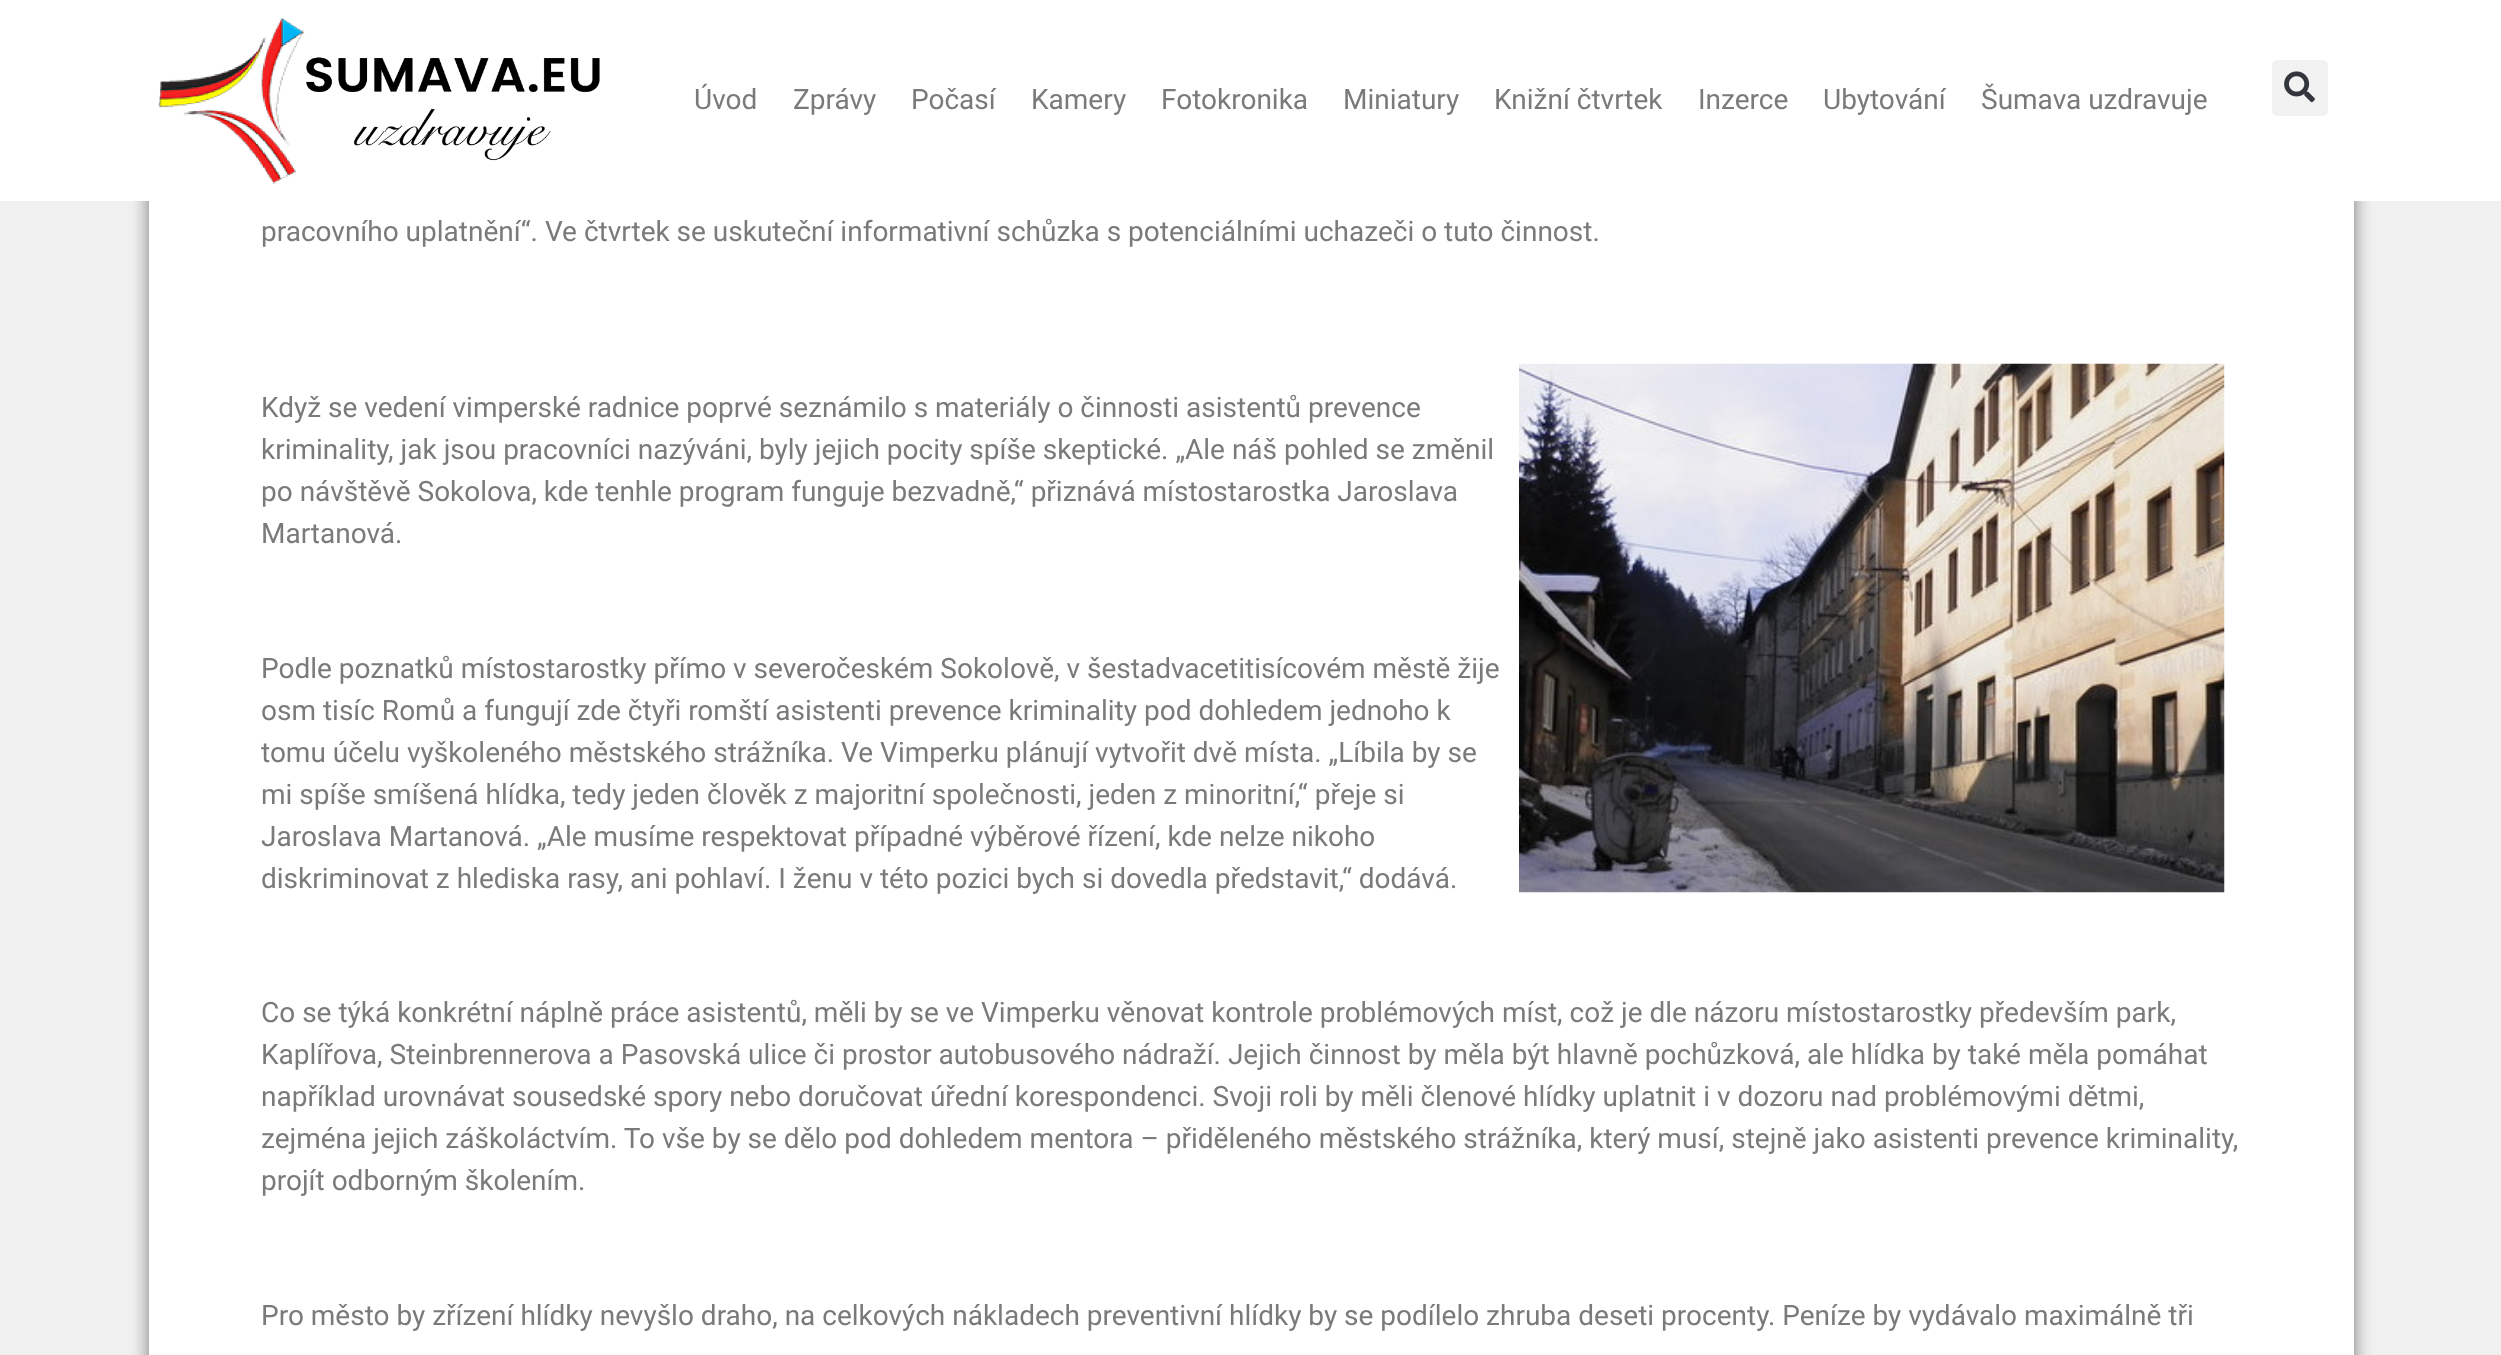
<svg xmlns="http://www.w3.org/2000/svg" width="2501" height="1355">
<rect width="100%" height="100%" fill="#f0f0f0"/>
<rect x="149" y="-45" width="2205" height="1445" rx="18" fill="#00000080" filter="blur(9px)"/>
<rect width="2501" height="201" fill="#fff"/>
<image x="158" y="18" width="442" height="166" href="media/1.png"/>
<text x="694" y="109" style="font-family:Roboto;font-size:28px;fill:#7a7a7a">Úvod</text>
<text x="793" y="109" style="font-family:Roboto;font-size:28px;fill:#7a7a7a">Zprávy</text>
<text x="911" y="109" style="font-family:Roboto;font-size:28px;fill:#7a7a7a">Počasí</text>
<text x="1031" y="109" style="font-family:Roboto;font-size:28px;fill:#7a7a7a">Kamery</text>
<text x="1161" y="109" style="font-family:Roboto;font-size:28px;fill:#7a7a7a">Fotokronika</text>
<text x="1343" y="109" style="font-family:Roboto;font-size:28px;fill:#7a7a7a">Miniatury</text>
<text x="1494" y="109" style="font-family:Roboto;font-size:28px;fill:#7a7a7a">Knižní čtvrtek</text>
<text x="1698" y="109" style="font-family:Roboto;font-size:28px;fill:#7a7a7a">Inzerce</text>
<text x="1823" y="109" style="font-family:Roboto;font-size:28px;fill:#7a7a7a">Ubytování</text>
<text x="1981" y="109" style="font-family:Roboto;font-size:28px;fill:#7a7a7a">Šumava uzdravuje</text>
<rect x="2272" y="60" width="56" height="56" rx="5" fill="#f2f2f2"/>
<image x="2284" y="71" width="31" height="32" href="media/2.png"/>
<rect x="149" y="201" width="2205" height="1154" fill="#fff"/>
<text x="261" y="241" style="font-family:Roboto;font-size:28px;fill:#7a7a7a">pracovního uplatnění“. Ve čtvrtek se uskuteční informativní schůzka s potenciálními uchazeči o tuto činnost.</text>
<text x="261" y="417" style="font-family:Roboto;font-size:28px;fill:#7a7a7a">Když se vedení vimperské radnice poprvé seznámilo s materiály o činnosti asistentů prevence</text>
<image x="1519" y="363" width="706" height="530" href="media/3.png"/>
<text x="261" y="459" style="font-family:Roboto;font-size:28px;fill:#7a7a7a">kriminality, jak jsou pracovníci nazýváni, byly jejich pocity spíše skeptické. „Ale náš pohled se změnil</text>
<text x="261" y="501" style="font-family:Roboto;font-size:28px;fill:#7a7a7a">po návštěvě Sokolova, kde tenhle program funguje bezvadně,“ přiznává místostarostka Jaroslava</text>
<text x="261" y="543" style="font-family:Roboto;font-size:28px;fill:#7a7a7a">Martanová.</text>
<text x="261" y="678" style="font-family:Roboto;font-size:28px;fill:#7a7a7a">Podle poznatků místostarostky přímo v severočeském Sokolově, v šestadvacetitisícovém městě žije</text>
<text x="261" y="720" style="font-family:Roboto;font-size:28px;fill:#7a7a7a">osm tisíc Romů a fungují zde čtyři romští asistenti prevence kriminality pod dohledem jednoho k</text>
<text x="261" y="762" style="font-family:Roboto;font-size:28px;fill:#7a7a7a">tomu účelu vyškoleného městského strážníka. Ve Vimperku plánují vytvořit dvě místa. „Líbila by se</text>
<text x="261" y="804" style="font-family:Roboto;font-size:28px;fill:#7a7a7a">mi spíše smíšená hlídka, tedy jeden člověk z majoritní společnosti, jeden z minoritní,“ přeje si</text>
<text x="261" y="846" style="font-family:Roboto;font-size:28px;fill:#7a7a7a">Jaroslava Martanová. „Ale musíme respektovat případné výběrové řízení, kde nelze nikoho</text>
<text x="261" y="888" style="font-family:Roboto;font-size:28px;fill:#7a7a7a">diskriminovat z hlediska rasy, ani pohlaví. I ženu v této pozici bych si dovedla představit,“ dodává.</text>
<text x="261" y="1022" style="font-family:Roboto;font-size:28px;fill:#7a7a7a">Co se týká konkrétní náplně práce asistentů, měli by se ve Vimperku věnovat kontrole problémových míst, což je dle názoru místostarostky především park,</text>
<text x="261" y="1064" style="font-family:Roboto;font-size:28px;fill:#7a7a7a">Kaplířova, Steinbrennerova a Pasovská ulice či prostor autobusového nádraží. Jejich činnost by měla být hlavně pochůzková, ale hlídka by také měla pomáhat</text>
<text x="261" y="1106" style="font-family:Roboto;font-size:28px;fill:#7a7a7a">například urovnávat sousedské spory nebo doručovat úřední korespondenci. Svoji roli by měli členové hlídky uplatnit i v dozoru nad problémovými dětmi,</text>
<text x="261" y="1148" style="font-family:Roboto;font-size:28px;fill:#7a7a7a">zejména jejich záškoláctvím. To vše by se dělo pod dohledem mentora – přiděleného městského strážníka, který musí, stejně jako asistenti prevence kriminality,</text>
<text x="261" y="1190" style="font-family:Roboto;font-size:28px;fill:#7a7a7a">projít odborným školením.</text>
<text x="261" y="1325" style="font-family:Roboto;font-size:28px;fill:#7a7a7a">Pro město by zřízení hlídky nevyšlo draho, na celkových nákladech preventivní hlídky by se podílelo zhruba deseti procenty. Peníze by vydávalo maximálně tři</text>
</svg>
